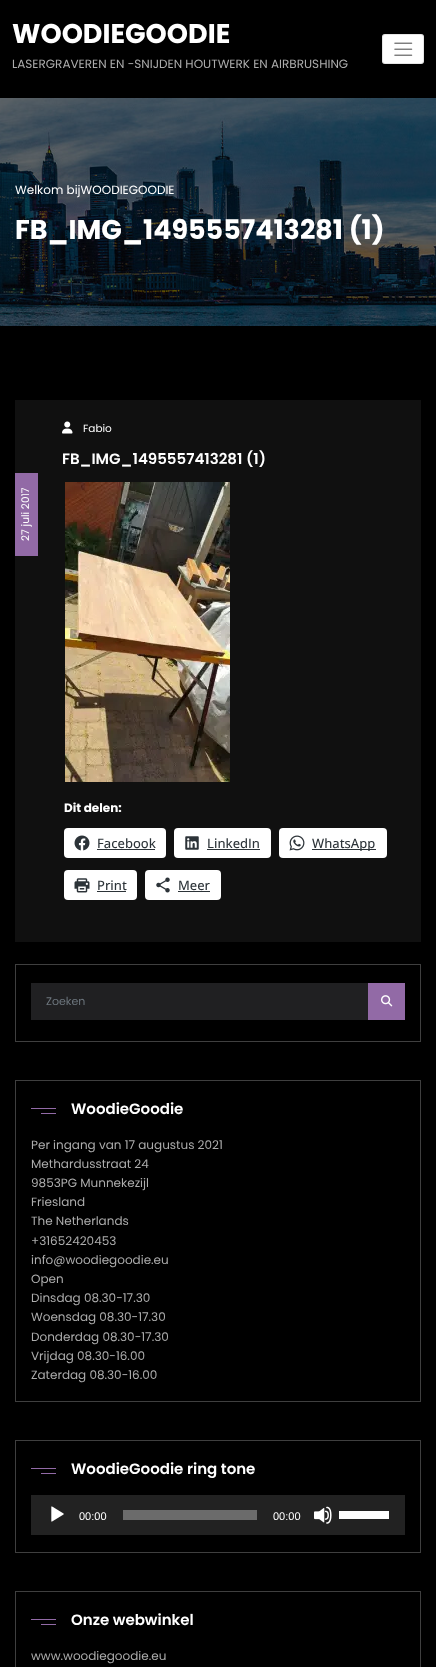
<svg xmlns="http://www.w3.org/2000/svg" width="436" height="1667">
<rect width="100%" height="100%" fill="#000"/>
<text x="12" y="43" style="font-family:Poppins;font-size:27px;font-weight:bold;fill:#fff">WOODIEGOODIE</text>
<text x="12" y="68" style="font-family:Poppins;font-size:12px;fill:#acacac">LASERGRAVEREN EN -SNIJDEN HOUTWERK EN AIRBRUSHING</text>
<rect x="382" y="34" width="42" height="30" rx="3" fill="#fff"/>
<rect x="382.5" y="34.5" width="41" height="29" rx="2.5" fill="none" stroke="#0000001a"/>
<image x="394" y="42" width="19" height="14" href="media/1.png"/>
<image x="0" y="98" width="436" height="228" href="media/2.png"/>
<text x="15" y="194" style="font-family:Poppins;font-size:12px;fill:#fff">Welkom bijWOODIEGOODIE</text>
<text x="15" y="239" style="font-family:Poppins;font-size:27px;font-weight:bold;fill:#fff">FB_IMG_1495557413281 (1)</text>
<rect x="15" y="400" width="406" height="542" fill="#101010"/>
<image x="62" y="421" width="11" height="13" href="media/3.png"/>
<text x="83" y="432" style="font-family:Poppins;font-size:10.5px;fill:#fff">Fabio</text>
<text x="62" y="464" style="font-family:Poppins;font-size:15px;font-weight:600;fill:#fff">FB_IMG_1495557413281 (1)</text>
<rect x="15" y="473" width="23" height="83" fill="#926aa6"/>
<text x="29" y="541" transform="rotate(-90 29 541)" style="font-family:Poppins;font-size:10.5px;fill:#fff">27 juli 2017</text>
<image x="65" y="482" width="165" height="300" href="media/4.png"/>
<text x="64" y="812" style="font-family:Poppins;font-size:12px;font-weight:bold;fill:#fff">Dit delen:</text>
<rect x="64" y="828" width="102" height="30" rx="4" fill="#fff"/>
<image x="74" y="835" width="16" height="16" href="media/5.png"/>
<text x="97" y="848" style="font-family:Open Sans;font-size:13px;font-weight:500;fill:#2c3338">Facebook</text>
<rect x="97" y="849" width="58" height="1" fill="#2c3338"/>
<rect x="174" y="828" width="97" height="30" rx="4" fill="#fff"/>
<image x="185" y="836" width="14" height="14" href="media/6.png"/>
<text x="207" y="848" style="font-family:Open Sans;font-size:13px;font-weight:500;fill:#2c3338">LinkedIn</text>
<rect x="207" y="849" width="53" height="1" fill="#2c3338"/>
<rect x="279" y="828" width="108" height="30" rx="4" fill="#fff"/>
<image x="289" y="835" width="16" height="16" href="media/7.png"/>
<rect x="312" y="849" width="64" height="1" fill="#2c3338"/>
<text x="312" y="848" style="font-family:Open Sans;font-size:13px;font-weight:500;fill:#2c3338">WhatsApp</text>
<rect x="64" y="870" width="73" height="30" rx="4" fill="#fff"/>
<image x="74" y="878" width="16" height="15" href="media/8.png"/>
<text x="97" y="890" style="font-family:Open Sans;font-size:13px;font-weight:500;fill:#2c3338">Print</text>
<rect x="97" y="891" width="29" height="1" fill="#2c3338"/>
<rect x="145" y="870" width="76" height="30" rx="4" fill="#fff"/>
<image x="156" y="877" width="14" height="16" href="media/9.png"/>
<text x="178" y="890" style="font-family:Open Sans;font-size:13px;font-weight:500;fill:#2c3338">Meer</text>
<rect x="178" y="891" width="32" height="1" fill="#2c3338"/>
<rect x="15.5" y="964.5" width="405" height="77" fill="none" stroke="#3f3f3f"/>
<rect x="31" y="983" width="337" height="37" fill="#202022"/>
<text x="46" y="1005" style="font-family:Poppins;font-size:11px;fill:#6c757d">Zoeken</text>
<rect x="368" y="983" width="37" height="37" fill="#926aa6"/>
<image x="381" y="995" width="12" height="12" href="media/10.png"/>
<rect x="15.5" y="1080.5" width="405" height="321" fill="none" stroke="#3f3f3f"/>
<rect x="31" y="1108" width="25" height="1" fill="#926aa6"/>
<text x="71" y="1114" style="font-family:Poppins;font-size:15px;font-weight:600;fill:#fff">WoodieGoodie</text>
<rect x="41" y="1113" width="15" height="1" fill="#926aa6"/>
<text x="31" y="1149" style="font-family:Poppins;font-size:12px;fill:#acacac">Per ingang van 17 augustus 2021</text>
<text x="31" y="1168" style="font-family:Poppins;font-size:12px;fill:#acacac">Methardusstraat 24</text>
<text x="31" y="1187" style="font-family:Poppins;font-size:12px;fill:#acacac">9853PG Munnekezijl</text>
<text x="31" y="1206" style="font-family:Poppins;font-size:12px;fill:#acacac">Friesland</text>
<text x="31" y="1225" style="font-family:Poppins;font-size:12px;fill:#acacac">The Netherlands</text>
<text x="31" y="1245" style="font-family:Poppins;font-size:12px;fill:#acacac">+31652420453</text>
<text x="31" y="1264" style="font-family:Poppins;font-size:12px;fill:#acacac">info@woodiegoodie.eu</text>
<text x="31" y="1283" style="font-family:Poppins;font-size:12px;fill:#acacac">Open</text>
<text x="31" y="1302" style="font-family:Poppins;font-size:12px;fill:#acacac">Dinsdag 08.30-17.30</text>
<text x="31" y="1321" style="font-family:Poppins;font-size:12px;fill:#acacac">Woensdag 08.30-17.30</text>
<text x="31" y="1341" style="font-family:Poppins;font-size:12px;fill:#acacac">Donderdag 08.30-17.30</text>
<text x="31" y="1360" style="font-family:Poppins;font-size:12px;fill:#acacac">Vrijdag 08.30-16.00</text>
<text x="31" y="1379" style="font-family:Poppins;font-size:12px;fill:#acacac">Zaterdag 08.30-16.00</text>
<rect x="15.5" y="1440.5" width="405" height="112" fill="none" stroke="#3f3f3f"/>
<rect x="31" y="1468" width="25" height="1" fill="#926aa6"/>
<text x="71" y="1474" style="font-family:Poppins;font-size:15px;font-weight:600;fill:#fff">WoodieGoodie ring tone</text>
<rect x="41" y="1473" width="15" height="1" fill="#926aa6"/>
<rect x="31" y="1495" width="374" height="40" fill="#222"/>
<image x="51" y="1506" width="13" height="16" href="media/11.png"/>
<text x="79" y="1520" style="font-family:Liberation Sans;font-size:11px;fill:#fff">00:00</text>
<rect x="123" y="1510" width="134" height="10" fill="#6b6b6b"/>
<text x="273" y="1520" style="font-family:Liberation Sans;font-size:11px;fill:#fff">00:00</text>
<image x="314" y="1506" width="18" height="18" href="media/12.png"/>
<rect x="339" y="1511" width="50" height="8" fill="#fff"/>
<rect x="15.5" y="1591.5" width="405" height="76" fill="none" stroke="#3f3f3f"/>
<rect x="31" y="1619" width="25" height="1" fill="#926aa6"/>
<text x="71" y="1625" style="font-family:Poppins;font-size:15px;font-weight:600;fill:#fff">Onze webwinkel</text>
<rect x="41" y="1624" width="15" height="1" fill="#926aa6"/>
<text x="31" y="1660" style="font-family:Poppins;font-size:12px;fill:#acacac">www.woodiegoodie.eu</text>
</svg>
